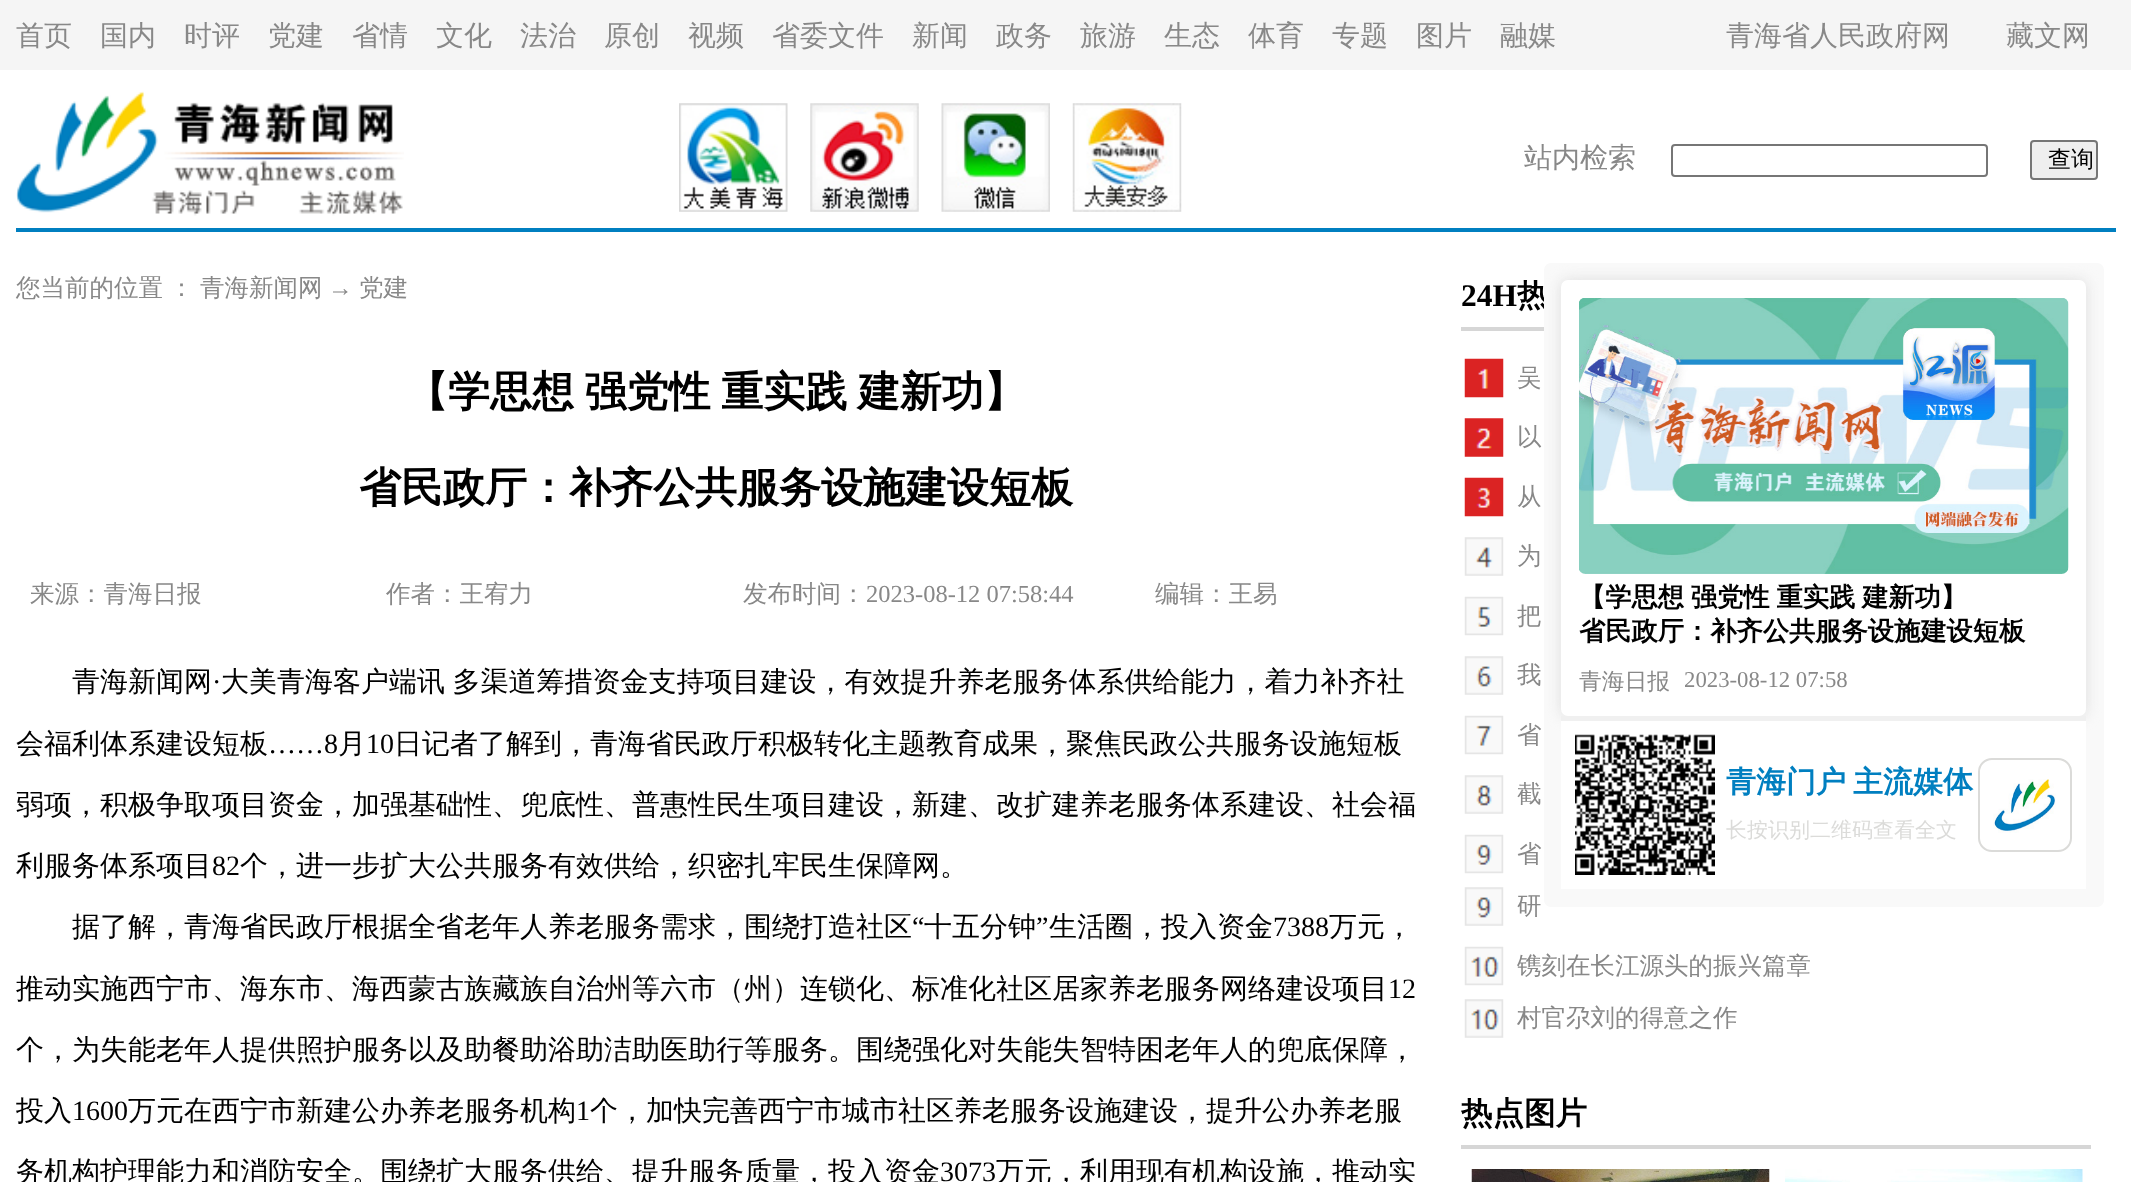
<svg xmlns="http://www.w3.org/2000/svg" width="2131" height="1182">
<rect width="100%" height="100%" fill="#fff"/>
<rect width="2131" height="70" fill="#f5f5f5"/>
<text x="16" y="45" style="font-family:WenQuanYi Zen Hei;font-size:28px;font-weight:500;fill:#888">首页</text>
<text x="100" y="45" style="font-family:WenQuanYi Zen Hei;font-size:28px;font-weight:500;fill:#888">国内</text>
<text x="184" y="45" style="font-family:WenQuanYi Zen Hei;font-size:28px;font-weight:500;fill:#888">时评</text>
<text x="268" y="45" style="font-family:WenQuanYi Zen Hei;font-size:28px;font-weight:500;fill:#888">党建</text>
<text x="352" y="45" style="font-family:WenQuanYi Zen Hei;font-size:28px;font-weight:500;fill:#888">省情</text>
<text x="436" y="45" style="font-family:WenQuanYi Zen Hei;font-size:28px;font-weight:500;fill:#888">文化</text>
<text x="520" y="45" style="font-family:WenQuanYi Zen Hei;font-size:28px;font-weight:500;fill:#888">法治</text>
<text x="604" y="45" style="font-family:WenQuanYi Zen Hei;font-size:28px;font-weight:500;fill:#888">原创</text>
<text x="688" y="45" style="font-family:WenQuanYi Zen Hei;font-size:28px;font-weight:500;fill:#888">视频</text>
<text x="772" y="45" style="font-family:WenQuanYi Zen Hei;font-size:28px;font-weight:500;fill:#888">省委文件</text>
<text x="912" y="45" style="font-family:WenQuanYi Zen Hei;font-size:28px;font-weight:500;fill:#888">新闻</text>
<text x="996" y="45" style="font-family:WenQuanYi Zen Hei;font-size:28px;font-weight:500;fill:#888">政务</text>
<text x="1080" y="45" style="font-family:WenQuanYi Zen Hei;font-size:28px;font-weight:500;fill:#888">旅游</text>
<text x="1164" y="45" style="font-family:WenQuanYi Zen Hei;font-size:28px;font-weight:500;fill:#888">生态</text>
<text x="1248" y="45" style="font-family:WenQuanYi Zen Hei;font-size:28px;font-weight:500;fill:#888">体育</text>
<text x="1332" y="45" style="font-family:WenQuanYi Zen Hei;font-size:28px;font-weight:500;fill:#888">专题</text>
<text x="1416" y="45" style="font-family:WenQuanYi Zen Hei;font-size:28px;font-weight:500;fill:#888">图片</text>
<text x="1500" y="45" style="font-family:WenQuanYi Zen Hei;font-size:28px;font-weight:500;fill:#888">融媒</text>
<text x="1726" y="45" style="font-family:WenQuanYi Zen Hei;font-size:28px;font-weight:500;fill:#888">青海省人民政府网</text>
<text x="2006" y="45" style="font-family:WenQuanYi Zen Hei;font-size:28px;font-weight:500;fill:#888">藏文网</text>
<image x="16" y="91" width="388" height="125" href="media/1.png"/>
<image x="679" y="103" width="109" height="109" href="media/2.png"/>
<image x="810" y="103" width="109" height="109" href="media/3.png"/>
<image x="941" y="103" width="109" height="109" href="media/4.png"/>
<image x="1072" y="103" width="110" height="109" href="media/5.png"/>
<text x="1524" y="167" style="font-family:WenQuanYi Zen Hei;font-size:28px;font-weight:500;fill:#888">站内检索</text>
<rect x="1672" y="145" width="315" height="31" rx="3" fill="none" stroke="#767676" stroke-width="2"/>
<rect x="2031" y="141" width="66" height="38" rx="3" fill="#efefef" stroke="#767676" stroke-width="2"/>
<text x="2048" y="167" style="font-family:WenQuanYi Zen Hei;font-size:23px;font-weight:500;fill:#000">查询</text>
<rect x="16" y="228" width="2100" height="4" fill="#007fc0"/>
<text x="16" y="296" word-spacing="-1" style="font-family:WenQuanYi Zen Hei;font-size:24.5px;font-weight:500;fill:#888">您当前的位置 ：</text>
<text x="200" y="296" style="font-family:WenQuanYi Zen Hei;font-size:24.5px;font-weight:500;fill:#888">青海新闻网</text>
<text x="328" y="296" style="font-family:Liberation Serif;font-size:24.5px;fill:#888">→</text>
<text x="359" y="296" style="font-family:WenQuanYi Zen Hei;font-size:24.5px;font-weight:500;fill:#888">党建</text>
<text x="406" y="406" word-spacing="-2" style="font-family:WenQuanYi Zen Hei;font-size:42px;font-weight:bold;fill:#000">【学思想 强党性 重实践 建新功】</text>
<text x="359" y="502" style="font-family:WenQuanYi Zen Hei;font-size:42px;font-weight:bold;fill:#000">省民政厅：补齐公共服务设施建设短板</text>
<text x="30" y="602" style="font-family:WenQuanYi Zen Hei;font-size:24.5px;font-weight:500;fill:#888">来源：青海日报</text>
<text x="386" y="602" style="font-family:WenQuanYi Zen Hei;font-size:24.5px;font-weight:500;fill:#888">作者：王宥力</text>
<text x="743" y="602" style="font-family:WenQuanYi Zen Hei;font-size:24.5px;font-weight:500;fill:#888">发布时间：</text>
<text x="866" y="602" style="font-family:Liberation Serif;font-size:24.5px;fill:#888">2023-08-12 07:58:44</text>
<text x="1155" y="602" style="font-family:WenQuanYi Zen Hei;font-size:24.5px;font-weight:500;fill:#888">编辑：王易</text>
<text x="72" y="691" style="font-family:WenQuanYi Zen Hei;font-size:28px;font-weight:500;fill:#000">青海新闻网</text>
<text x="212" y="691" style="font-family:Liberation Serif;font-size:28px;fill:#000">·</text>
<text x="221" y="691" word-spacing="-1" style="font-family:WenQuanYi Zen Hei;font-size:28px;font-weight:500;fill:#000">大美青海客户端讯 多渠道筹措资金支持项目建设，有效提升养老服务体系供给能力，着力补齐社</text>
<text x="16" y="753" style="font-family:WenQuanYi Zen Hei;font-size:28px;font-weight:500;fill:#000">会福利体系建设短板</text>
<text x="268" y="753" style="font-family:Liberation Serif;font-size:28px;fill:#000">……8</text>
<text x="338" y="753" style="font-family:WenQuanYi Zen Hei;font-size:28px;font-weight:500;fill:#000">月</text>
<text x="366" y="753" style="font-family:Liberation Serif;font-size:28px;fill:#000">10</text>
<text x="394" y="753" style="font-family:WenQuanYi Zen Hei;font-size:28px;font-weight:500;fill:#000">日记者了解到，青海省民政厅积极转化主题教育成果，聚焦民政公共服务设施短板</text>
<text x="16" y="814" style="font-family:WenQuanYi Zen Hei;font-size:28px;font-weight:500;fill:#000">弱项，积极争取项目资金，加强基础性、兜底性、普惠性民生项目建设，新建、改扩建养老服务体系建设、社会福</text>
<text x="16" y="875" style="font-family:WenQuanYi Zen Hei;font-size:28px;font-weight:500;fill:#000">利服务体系项目</text>
<text x="212" y="875" style="font-family:Liberation Serif;font-size:28px;fill:#000">82</text>
<text x="240" y="875" style="font-family:WenQuanYi Zen Hei;font-size:28px;font-weight:500;fill:#000">个，进一步扩大公共服务有效供给，织密扎牢民生保障网。</text>
<text x="72" y="936" style="font-family:WenQuanYi Zen Hei;font-size:28px;font-weight:500;fill:#000">据了解，青海省民政厅根据全省老年人养老服务需求，围绕打造社区</text>
<text x="912" y="936" style="font-family:Liberation Serif;font-size:28px;fill:#000">“</text>
<text x="924" y="936" style="font-family:WenQuanYi Zen Hei;font-size:28px;font-weight:500;fill:#000">十五分钟</text>
<text x="1036" y="936" style="font-family:Liberation Serif;font-size:28px;fill:#000">”</text>
<text x="1049" y="936" style="font-family:WenQuanYi Zen Hei;font-size:28px;font-weight:500;fill:#000">生活圈，投入资金</text>
<text x="1273" y="936" style="font-family:Liberation Serif;font-size:28px;fill:#000">7388</text>
<text x="1329" y="936" style="font-family:WenQuanYi Zen Hei;font-size:28px;font-weight:500;fill:#000">万元，</text>
<text x="16" y="998" style="font-family:WenQuanYi Zen Hei;font-size:28px;font-weight:500;fill:#000">推动实施西宁市、海东市、海西蒙古族藏族自治州等六市（州）连锁化、标准化社区居家养老服务网络建设项目</text>
<text x="1388" y="998" style="font-family:Liberation Serif;font-size:28px;fill:#000">12</text>
<text x="16" y="1059" style="font-family:WenQuanYi Zen Hei;font-size:28px;font-weight:500;fill:#000">个，为失能老年人提供照护服务以及助餐助浴助洁助医助行等服务。围绕强化对失能失智特困老年人的兜底保障，</text>
<text x="16" y="1120" style="font-family:WenQuanYi Zen Hei;font-size:28px;font-weight:500;fill:#000">投入</text>
<text x="72" y="1120" style="font-family:Liberation Serif;font-size:28px;fill:#000">1600</text>
<text x="128" y="1120" style="font-family:WenQuanYi Zen Hei;font-size:28px;font-weight:500;fill:#000">万元在西宁市新建公办养老服务机构</text>
<text x="576" y="1120" style="font-family:Liberation Serif;font-size:28px;fill:#000">1</text>
<text x="590" y="1120" style="font-family:WenQuanYi Zen Hei;font-size:28px;font-weight:500;fill:#000">个，加快完善西宁市城市社区养老服务设施建设，提升公办养老服</text>
<text x="16" y="1181" style="font-family:WenQuanYi Zen Hei;font-size:28px;font-weight:500;fill:#000">务机构护理能力和消防安全。围绕扩大服务供给、提升服务质量，投入资金</text>
<text x="940" y="1181" style="font-family:Liberation Serif;font-size:28px;fill:#000">3073</text>
<text x="996" y="1181" style="font-family:WenQuanYi Zen Hei;font-size:28px;font-weight:500;fill:#000">万元，利用现有机构设施，推动实</text>
<text x="1461" y="306" style="font-family:Liberation Serif;font-size:31.5px;font-weight:bold;fill:#000">24H</text>
<text x="1517" y="306" style="font-family:WenQuanYi Zen Hei;font-size:31.5px;font-weight:bold;fill:#000">热</text>
<rect x="1461" y="327" width="83" height="4" fill="#d6d6d6"/>
<image x="1464" y="358" width="40" height="40" href="media/6.png"/>
<text x="1517" y="386" style="font-family:WenQuanYi Zen Hei;font-size:24.5px;font-weight:500;fill:#888">吴</text>
<image x="1464" y="418" width="40" height="39" href="media/7.png"/>
<text x="1517" y="445" style="font-family:WenQuanYi Zen Hei;font-size:24.5px;font-weight:500;fill:#888">以</text>
<image x="1464" y="477" width="40" height="40" href="media/8.png"/>
<text x="1517" y="505" style="font-family:WenQuanYi Zen Hei;font-size:24.5px;font-weight:500;fill:#888">从</text>
<image x="1464" y="537" width="40" height="39" href="media/9.png"/>
<text x="1517" y="564" word-spacing="-1" style="font-family:WenQuanYi Zen Hei;font-size:24.5px;font-weight:500;fill:#888">为</text>
<image x="1464" y="596" width="40" height="40" href="media/10.png"/>
<text x="1517" y="624" style="font-family:WenQuanYi Zen Hei;font-size:24.5px;font-weight:500;fill:#888">把</text>
<image x="1464" y="656" width="40" height="39" href="media/11.png"/>
<text x="1517" y="683" style="font-family:WenQuanYi Zen Hei;font-size:24.5px;font-weight:500;fill:#888">我</text>
<image x="1464" y="715" width="40" height="40" href="media/12.png"/>
<text x="1517" y="743" style="font-family:WenQuanYi Zen Hei;font-size:24.5px;font-weight:500;fill:#888">省</text>
<image x="1464" y="775" width="40" height="39" href="media/13.png"/>
<text x="1517" y="802" style="font-family:WenQuanYi Zen Hei;font-size:24.5px;font-weight:500;fill:#888">截</text>
<image x="1464" y="834" width="40" height="40" href="media/14.png"/>
<text x="1517" y="862" style="font-family:WenQuanYi Zen Hei;font-size:24.5px;font-weight:500;fill:#888">省</text>
<image x="1464" y="887" width="40" height="39" href="media/15.png"/>
<text x="1517" y="914" style="font-family:WenQuanYi Zen Hei;font-size:24.5px;font-weight:500;fill:#888">研</text>
<image x="1464" y="946" width="40" height="40" href="media/16.png"/>
<text x="1517" y="974" style="font-family:WenQuanYi Zen Hei;font-size:24.5px;font-weight:500;fill:#888">镌刻在长江源头的振兴篇章</text>
<image x="1464" y="999" width="40" height="39" href="media/17.png"/>
<text x="1517" y="1026" style="font-family:WenQuanYi Zen Hei;font-size:24.5px;font-weight:500;fill:#888">村官尕刘的得意之作</text>
<text x="1461" y="1124" style="font-family:WenQuanYi Zen Hei;font-size:31.5px;font-weight:bold;fill:#000">热点图片</text>
<rect x="1461" y="1145" width="630" height="4" fill="#d6d6d6"/>
<image x="1471" y="1169" width="299" height="13" href="media/18.png"/>
<image x="1785" y="1169" width="298" height="13" href="media/19.png"/>
<rect x="1544" y="263" width="560" height="644" rx="7" fill="#f9f9f9"/>
<rect x="1561" y="280" width="525" height="436" rx="7" fill="#dedede" filter="blur(7px)"/>
<rect x="1561" y="280" width="525" height="436" rx="7" fill="#fff"/>
<image x="1579" y="298" width="490" height="276" href="media/20.png"/>
<text x="1579" y="606" word-spacing="-1" style="font-family:WenQuanYi Zen Hei;font-size:26.25px;font-weight:bold;fill:#000">【学思想 强党性 重实践 建新功】</text>
<text x="1579" y="640" style="font-family:WenQuanYi Zen Hei;font-size:26.25px;font-weight:bold;fill:#000">省民政厅：补齐公共服务设施建设短板</text>
<text x="1579" y="689" style="font-family:WenQuanYi Zen Hei;font-size:22.75px;font-weight:500;fill:#888">青海日报</text>
<text x="1684" y="687" style="font-family:Liberation Serif;font-size:22.75px;fill:#888">2023-08-12 07:58</text>
<rect x="1561" y="721" width="525" height="168" fill="#fff"/>
<rect x="1561" y="716" width="525" height="5" fill="#f0f0f0"/>
<image x="1575" y="734" width="140" height="141" href="media/21.png"/>
<text x="1726" y="792" style="font-family:WenQuanYi Zen Hei;font-size:30px;font-weight:bold;fill:#007fc0">青海门户</text>
<text x="1853" y="792" style="font-family:WenQuanYi Zen Hei;font-size:30px;font-weight:bold;fill:#007fc0">主流媒体</text>
<text x="1726" y="837" style="font-family:WenQuanYi Zen Hei;font-size:21px;font-weight:500;fill:#dbdbd9">长按识别二维码查看全文</text>
<rect x="1979" y="759" width="92" height="92" rx="13" fill="none" stroke="#dbdbd9" stroke-width="2"/>
<image x="1993" y="779" width="63" height="54" href="media/22.png"/>
</svg>
